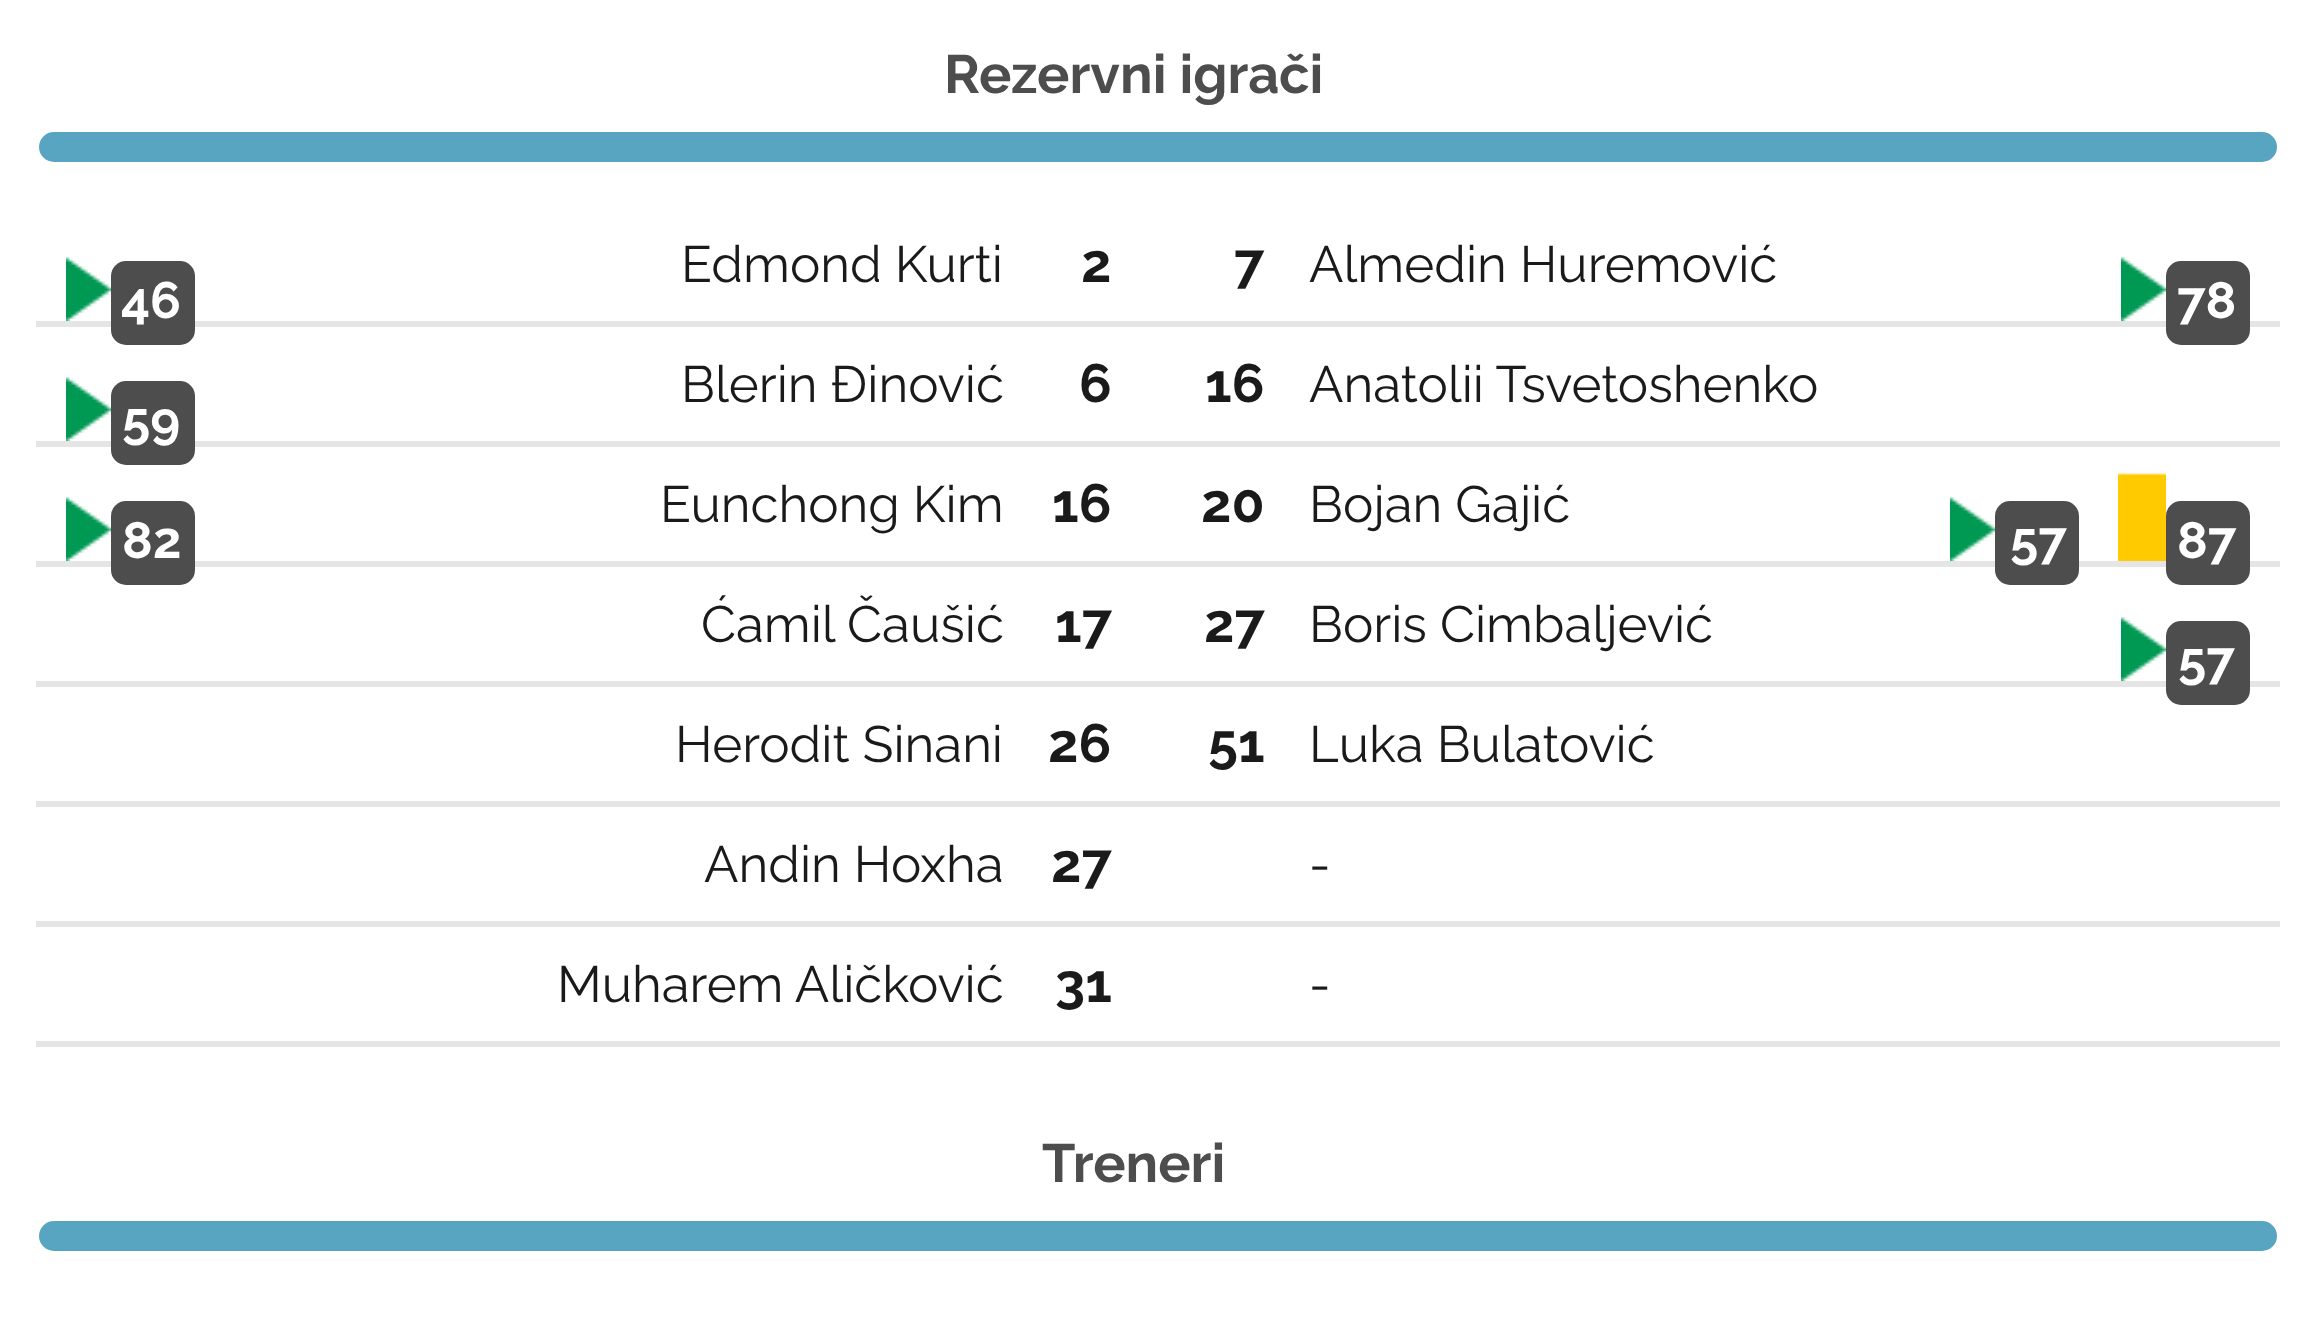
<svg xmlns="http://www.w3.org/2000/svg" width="2313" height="1327">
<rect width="100%" height="100%" fill="#fff"/>
<text x="944" y="93" style="font-family:Raleway;font-size:54px;font-weight:bold;fill:#4d4d4d">Rezervni igrači</text>
<rect x="39" y="132" width="2238" height="30" rx="15" fill="#57a5c0"/>
<rect x="36" y="321" width="2244" height="6" fill="#e5e5e5"/>
<text x="681" y="282" style="font-family:Raleway;font-size:51px;fill:#1a1a1a">Edmond Kurti</text>
<image x="66" y="257" width="45" height="64" href="media/1.png"/>
<rect x="111" y="261" width="84" height="84" rx="15" fill="#4d4d4d"/>
<text x="121" y="318" style="font-family:Raleway;font-size:51px;font-weight:bold;fill:#fff">46</text>
<text x="1081" y="282" style="font-family:Raleway;font-size:54px;font-weight:bold;fill:#1a1a1a">2</text>
<text x="1234" y="282" style="font-family:Raleway;font-size:54px;font-weight:bold;fill:#1a1a1a">7</text>
<text x="1309" y="282" style="font-family:Raleway;font-size:51px;fill:#1a1a1a">Almedin Huremović</text>
<image x="2121" y="257" width="45" height="64" href="media/2.png"/>
<rect x="2166" y="261" width="84" height="84" rx="15" fill="#4d4d4d"/>
<text x="2177" y="318" style="font-family:Raleway;font-size:51px;font-weight:bold;fill:#fff">78</text>
<rect x="36" y="441" width="2244" height="6" fill="#e5e5e5"/>
<text x="681" y="402" style="font-family:Raleway;font-size:51px;fill:#1a1a1a">Blerin Đinović</text>
<image x="66" y="377" width="45" height="64" href="media/1.png"/>
<rect x="111" y="381" width="84" height="84" rx="15" fill="#4d4d4d"/>
<text x="122" y="438" style="font-family:Raleway;font-size:51px;font-weight:bold;fill:#fff">59</text>
<text x="1079" y="402" style="font-family:Raleway;font-size:54px;font-weight:bold;fill:#1a1a1a">6</text>
<text x="1205" y="402" style="font-family:Raleway;font-size:54px;font-weight:bold;fill:#1a1a1a">16</text>
<text x="1309" y="402" style="font-family:Raleway;font-size:51px;fill:#1a1a1a">Anatolii Tsvetoshenko</text>
<rect x="36" y="561" width="2244" height="6" fill="#e5e5e5"/>
<text x="660" y="522" style="font-family:Raleway;font-size:51px;fill:#1a1a1a">Eunchong Kim</text>
<image x="66" y="497" width="45" height="64" href="media/1.png"/>
<rect x="111" y="501" width="84" height="84" rx="15" fill="#4d4d4d"/>
<text x="122" y="558" style="font-family:Raleway;font-size:51px;font-weight:bold;fill:#fff">82</text>
<text x="1052" y="522" style="font-family:Raleway;font-size:54px;font-weight:bold;fill:#1a1a1a">16</text>
<text x="1201" y="522" style="font-family:Raleway;font-size:54px;font-weight:bold;fill:#1a1a1a">20</text>
<text x="1309" y="522" style="font-family:Raleway;font-size:51px;fill:#1a1a1a">Bojan Gajić</text>
<image x="1950" y="497" width="45" height="64" href="media/2.png"/>
<rect x="1995" y="501" width="84" height="84" rx="15" fill="#4d4d4d"/>
<text x="2010" y="558" style="font-family:Raleway;font-size:51px;font-weight:bold;fill:#fff">57</text>
<image x="2118" y="473" width="48" height="88" href="media/3.png"/>
<rect x="2166" y="501" width="84" height="84" rx="15" fill="#4d4d4d"/>
<text x="2177" y="558" style="font-family:Raleway;font-size:51px;font-weight:bold;fill:#fff">87</text>
<rect x="36" y="681" width="2244" height="6" fill="#e5e5e5"/>
<text x="701" y="642" style="font-family:Raleway;font-size:51px;fill:#1a1a1a">Ćamil Čaušić</text>
<text x="1055" y="642" style="font-family:Raleway;font-size:54px;font-weight:bold;fill:#1a1a1a">17</text>
<text x="1204" y="642" style="font-family:Raleway;font-size:54px;font-weight:bold;fill:#1a1a1a">27</text>
<text x="1309" y="642" style="font-family:Raleway;font-size:51px;fill:#1a1a1a">Boris Cimbaljević</text>
<image x="2121" y="617" width="45" height="64" href="media/2.png"/>
<rect x="2166" y="621" width="84" height="84" rx="15" fill="#4d4d4d"/>
<text x="2178" y="678" style="font-family:Raleway;font-size:51px;font-weight:bold;fill:#fff">57</text>
<rect x="36" y="801" width="2244" height="6" fill="#e5e5e5"/>
<text x="675" y="762" style="font-family:Raleway;font-size:51px;fill:#1a1a1a">Herodit Sinani</text>
<text x="1048" y="762" style="font-family:Raleway;font-size:54px;font-weight:bold;fill:#1a1a1a">26</text>
<text x="1208" y="762" style="font-family:Raleway;font-size:54px;font-weight:bold;fill:#1a1a1a">51</text>
<text x="1309" y="762" style="font-family:Raleway;font-size:51px;fill:#1a1a1a">Luka Bulatović</text>
<rect x="36" y="921" width="2244" height="6" fill="#e5e5e5"/>
<text x="704" y="882" style="font-family:Raleway;font-size:51px;fill:#1a1a1a">Andin Hoxha</text>
<text x="1051" y="882" style="font-family:Raleway;font-size:54px;font-weight:bold;fill:#1a1a1a">27</text>
<text x="1309" y="882" style="font-family:Raleway;font-size:51px;fill:#1a1a1a">-</text>
<rect x="36" y="1041" width="2244" height="6" fill="#e5e5e5"/>
<text x="557" y="1002" style="font-family:Raleway;font-size:51px;fill:#1a1a1a">Muharem Aličković</text>
<text x="1055" y="1002" style="font-family:Raleway;font-size:54px;font-weight:bold;fill:#1a1a1a">31</text>
<text x="1309" y="1002" style="font-family:Raleway;font-size:51px;fill:#1a1a1a">-</text>
<text x="1042" y="1182" style="font-family:Raleway;font-size:54px;font-weight:bold;fill:#4d4d4d">Treneri</text>
<rect x="39" y="1221" width="2238" height="30" rx="15" fill="#57a5c0"/>
</svg>
